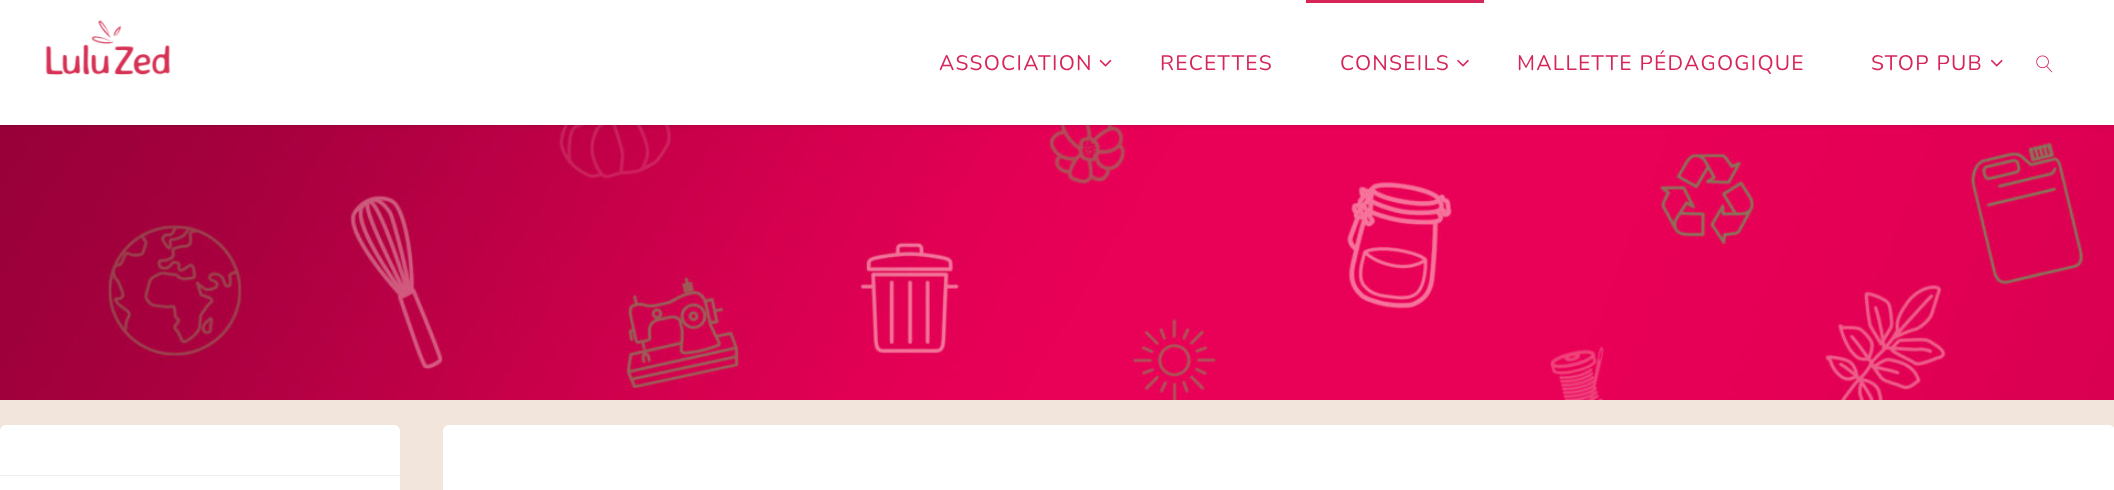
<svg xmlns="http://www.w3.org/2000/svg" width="2114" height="490">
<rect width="100%" height="100%" fill="#f2e6dc"/>
<image x="0" y="125" width="2114" height="275" href="media/6.png"/>
<rect width="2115" height="125" fill="#00000033" filter="blur(2px)"/>
<rect width="2114" height="125" fill="#fff"/>
<image x="45" y="20" width="126" height="56" href="media/1.png"/>
<text x="939" y="70" style="font-family:Nunito;font-size:21px;font-weight:200;letter-spacing:1.25px;fill:#d62559">ASSOCIATION</text>
<image x="1099" y="59" width="13" height="8" href="media/2.png"/>
<text x="1160" y="70" style="font-family:Nunito;font-size:21px;font-weight:200;letter-spacing:1.25px;fill:#d62559">RECETTES</text>
<rect x="1306" width="178" height="3" fill="#d62559"/>
<text x="1340" y="70" style="font-family:Nunito;font-size:21px;font-weight:200;letter-spacing:1.25px;fill:#d62559">CONSEILS</text>
<image x="1457" y="59" width="12" height="8" href="media/3.png"/>
<text x="1517" y="70" style="font-family:Nunito;font-size:21px;font-weight:200;letter-spacing:1.25px;fill:#d62559">MALLETTE PÉDAGOGIQUE</text>
<text x="1871" y="70" style="font-family:Nunito;font-size:21px;font-weight:200;letter-spacing:1.25px;fill:#d62559">STOP PUB</text>
<image x="1991" y="59" width="12" height="8" href="media/4.png"/>
<image x="2036" y="55" width="17" height="18" href="media/5.png"/>
<rect y="425" width="400" height="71" rx="6" fill="#fff"/>
<rect y="475" width="400" height="1" fill="#eee"/>
<rect x="443" y="425" width="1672" height="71" rx="6" fill="#fff"/>
</svg>
